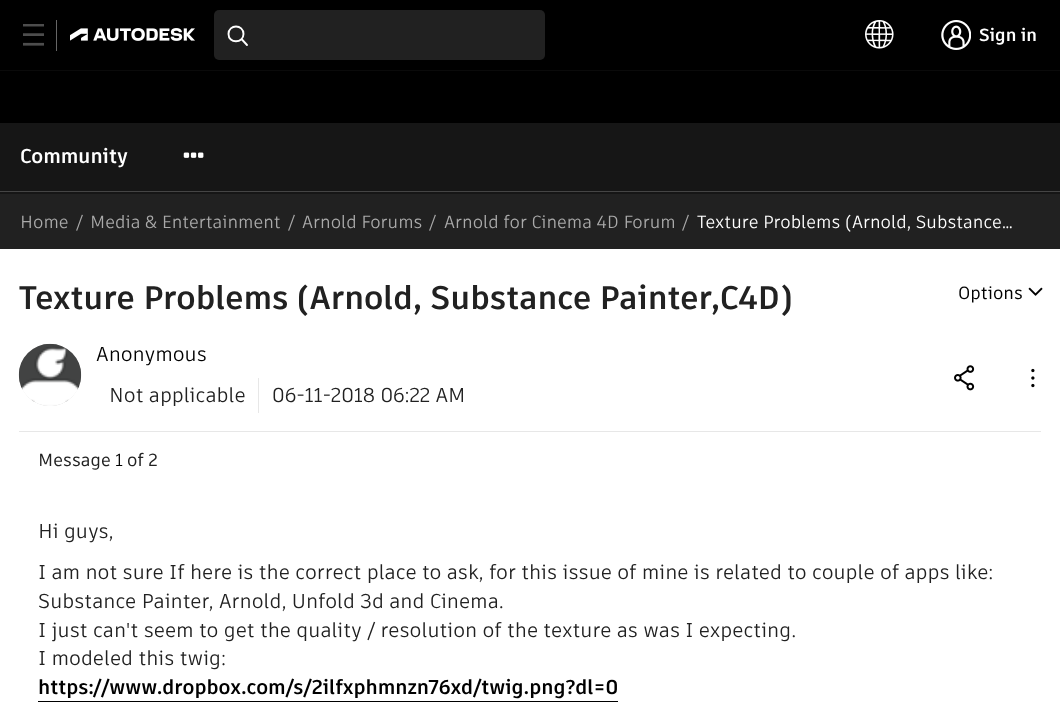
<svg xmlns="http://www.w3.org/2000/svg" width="1060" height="710">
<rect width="100%" height="100%" fill="#fff"/>
<rect width="1060" height="123" fill="#000"/>
<rect y="70" width="1060" height="1" fill="#0a0a0a"/>
<image x="23" y="24" width="21" height="22" href="media/1.png"/>
<rect x="56" y="20" width="1" height="31" fill="#666"/>
<image x="70" y="28" width="125" height="13" href="media/2.png"/>
<rect x="214" y="10" width="331" height="50" rx="5" fill="#212121"/>
<path d="M241.5 39l5.5 6m-3.5-11c0 9.5-15 10-15 0c0-10 15-10 15 0z" fill="none" stroke="#fff" stroke-width="1.9" stroke-linecap="round"/>
<image x="865" y="20" width="29" height="29" href="media/3.png"/>
<image x="941" y="20" width="30" height="30" href="media/4.png"/>
<text x="979" y="41" style="font-family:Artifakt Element;font-size:17.5px;font-weight:bold;fill:#fff">Sign in</text>
<rect y="123" width="1060" height="71" fill="#161616"/>
<text x="20" y="163" style="font-family:Artifakt Element;font-size:20px;font-weight:bold;fill:#fff">Community</text>
<image x="183" y="152" width="21" height="6" href="media/5.png"/>
<rect y="191" width="1060" height="1" fill="#454545"/>
<rect y="194" width="1060" height="55" fill="#212121"/>
<text x="20" y="228" style="font-family:Artifakt Element;font-size:17.5px;fill:#aaa">Home</text>
<text x="76" y="228" style="font-family:Artifakt Element;font-size:17.5px;fill:#aaa">/</text>
<text x="90" y="228" style="font-family:Artifakt Element;font-size:17.5px;fill:#aaa">Media &amp; Entertainment</text>
<text x="288" y="228" style="font-family:Artifakt Element;font-size:17.5px;fill:#aaa">/</text>
<text x="302" y="228" style="font-family:Artifakt Element;font-size:17.5px;fill:#aaa">Arnold Forums</text>
<text x="429" y="228" style="font-family:Artifakt Element;font-size:17.5px;fill:#aaa">/</text>
<text x="444" y="228" style="font-family:Artifakt Element;font-size:17.5px;fill:#aaa">Arnold for Cinema 4D Forum</text>
<text x="682" y="228" style="font-family:Artifakt Element;font-size:17.5px;fill:#aaa">/</text>
<text x="697" y="228" style="font-family:Artifakt Element;font-size:17.5px;fill:#fff">Texture Problems (Arnold, Substance…</text>
<rect x="19" y="431" width="1022" height="1" fill="#e7e7e7"/>
<text x="19" y="309" style="font-family:Artifakt Element;font-size:32.5px;font-weight:bold;fill:#212121">Texture Problems (Arnold, Substance Painter,C4D)</text>
<text x="958" y="299" style="font-family:Artifakt Element;font-size:17.5px;font-weight:500;fill:#000">Options</text>
<image x="1028" y="287" width="15" height="9" href="media/6.png"/>
<rect x="19" y="344" width="62" height="62" rx="31" fill="#ccc" filter="blur(0.5px)"/>
<image x="18" y="343" width="64" height="63" href="media/7.png"/>
<text x="96" y="361" style="font-family:Artifakt Element;font-size:20px;fill:#000">Anonymous</text>
<rect x="258" y="378" width="1" height="35" fill="#e7e7e7"/>
<text x="109" y="402" style="font-family:Artifakt Element;font-size:20px;fill:#212121">Not applicable</text>
<text x="272" y="402" style="font-family:Artifakt Element;font-size:20px;fill:#212121">06-11-2018 06:22 AM</text>
<image x="954" y="365" width="21" height="26" href="media/8.png"/>
<image x="1031" y="368" width="4" height="20" href="media/9.png"/>
<text x="38" y="466" style="font-family:Artifakt Element;font-size:17.5px;font-weight:500;fill:#212121">Message</text>
<text x="115" y="466" style="font-family:Artifakt Element;font-size:17.5px;fill:#000">1</text>
<text x="127" y="466" style="font-family:Artifakt Element;font-size:17.5px;font-weight:500;fill:#212121">of 2</text>
<text x="38" y="538" style="font-family:Artifakt Element;font-size:20px;fill:#212121">Hi guys,</text>
<text x="38" y="579" style="font-family:Artifakt Element;font-size:20px;fill:#212121">I am not sure If here is the correct place to ask, for this issue of mine is related to couple of apps like:</text>
<text x="38" y="608" style="font-family:Artifakt Element;font-size:20px;fill:#212121">Substance Painter, Arnold, Unfold 3d and Cinema.</text>
<text x="38" y="637" style="font-family:Artifakt Element;font-size:20px;fill:#212121">I just can't seem to get the quality / resolution of the texture as was I expecting.</text>
<text x="38" y="665" style="font-family:Artifakt Element;font-size:20px;fill:#212121">I modeled this twig:</text>
<text x="38" y="694" style="font-family:Artifakt Element;font-size:20px;font-weight:bold;fill:#000">https://www.dropbox.com/s/2ilfxphmnzn76xd/twig.png?dl=0</text>
<rect x="38" y="701" width="580" height="1" fill="#000"/>
</svg>
